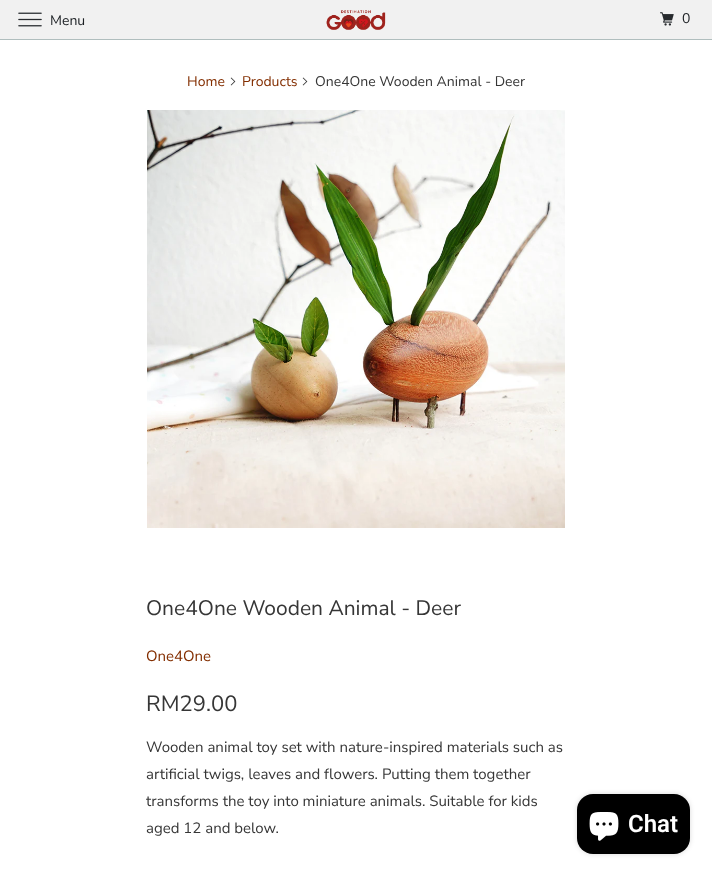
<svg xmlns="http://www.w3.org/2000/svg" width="712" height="875">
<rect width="100%" height="100%" fill="#fff"/>
<rect width="712" height="39" fill="#f1f1f1"/>
<rect y="39" width="712" height="1" fill="#b0bebe"/>
<image x="18" y="12" width="24" height="15" href="media/1.png"/>
<text x="50" y="25" style="font-family:Nunito Sans;font-size:14px;fill:#1b1f23">Menu</text>
<image x="326" y="10" width="60" height="20" href="media/2.png"/>
<image x="660" y="12" width="14" height="14" href="media/3.png"/>
<text x="682" y="23" style="font-family:Nunito Sans;font-size:14px;fill:#1b1f23">0</text>
<text x="187" y="86" style="font-family:Nunito Sans;font-size:14px;fill:#832e00">Home</text>
<image x="230" y="77" width="6" height="9" href="media/4.png"/>
<text x="242" y="86" style="font-family:Nunito Sans;font-size:14px;fill:#832e00">Products</text>
<image x="302" y="77" width="6" height="9" href="media/4.png"/>
<text x="315" y="86" style="font-family:Nunito Sans;font-size:14px;fill:#363636">One4One Wooden Animal - Deer</text>
<image x="147" y="110" width="418" height="418" href="media/5.png"/>
<text x="146" y="615" style="font-family:Nunito Sans;font-size:21px;fill:#363636">One4One Wooden Animal - Deer</text>
<text x="146" y="661" style="font-family:Nunito Sans;font-size:15px;fill:#832e00">One4One</text>
<text x="146" y="711" style="font-family:Nunito Sans;font-size:22px;fill:#363636">RM29.00</text>
<text x="146" y="752" style="font-family:Nunito Sans;font-size:15px;fill:#363636">Wooden animal toy set with nature-inspired materials such as</text>
<text x="146" y="779" style="font-family:Nunito Sans;font-size:15px;fill:#363636">artificial twigs, leaves and flowers. Putting them together</text>
<text x="146" y="806" style="font-family:Nunito Sans;font-size:15px;fill:#363636">transforms the toy into miniature animals. Suitable for kids</text>
<text x="146" y="833" style="font-family:Nunito Sans;font-size:15px;fill:#363636">aged 12 and below.</text>
<rect x="577" y="794" width="113" height="60" rx="16" fill="#00000026" filter="blur(2.5px)"/>
<rect x="577" y="794" width="113" height="60" rx="16" fill="#000"/>
<image x="589" y="812" width="30" height="29" href="media/6.png"/>
<text x="628" y="832" style="font-family:Roboto;font-size:24px;font-weight:600;fill:#fff">Chat</text>
</svg>
